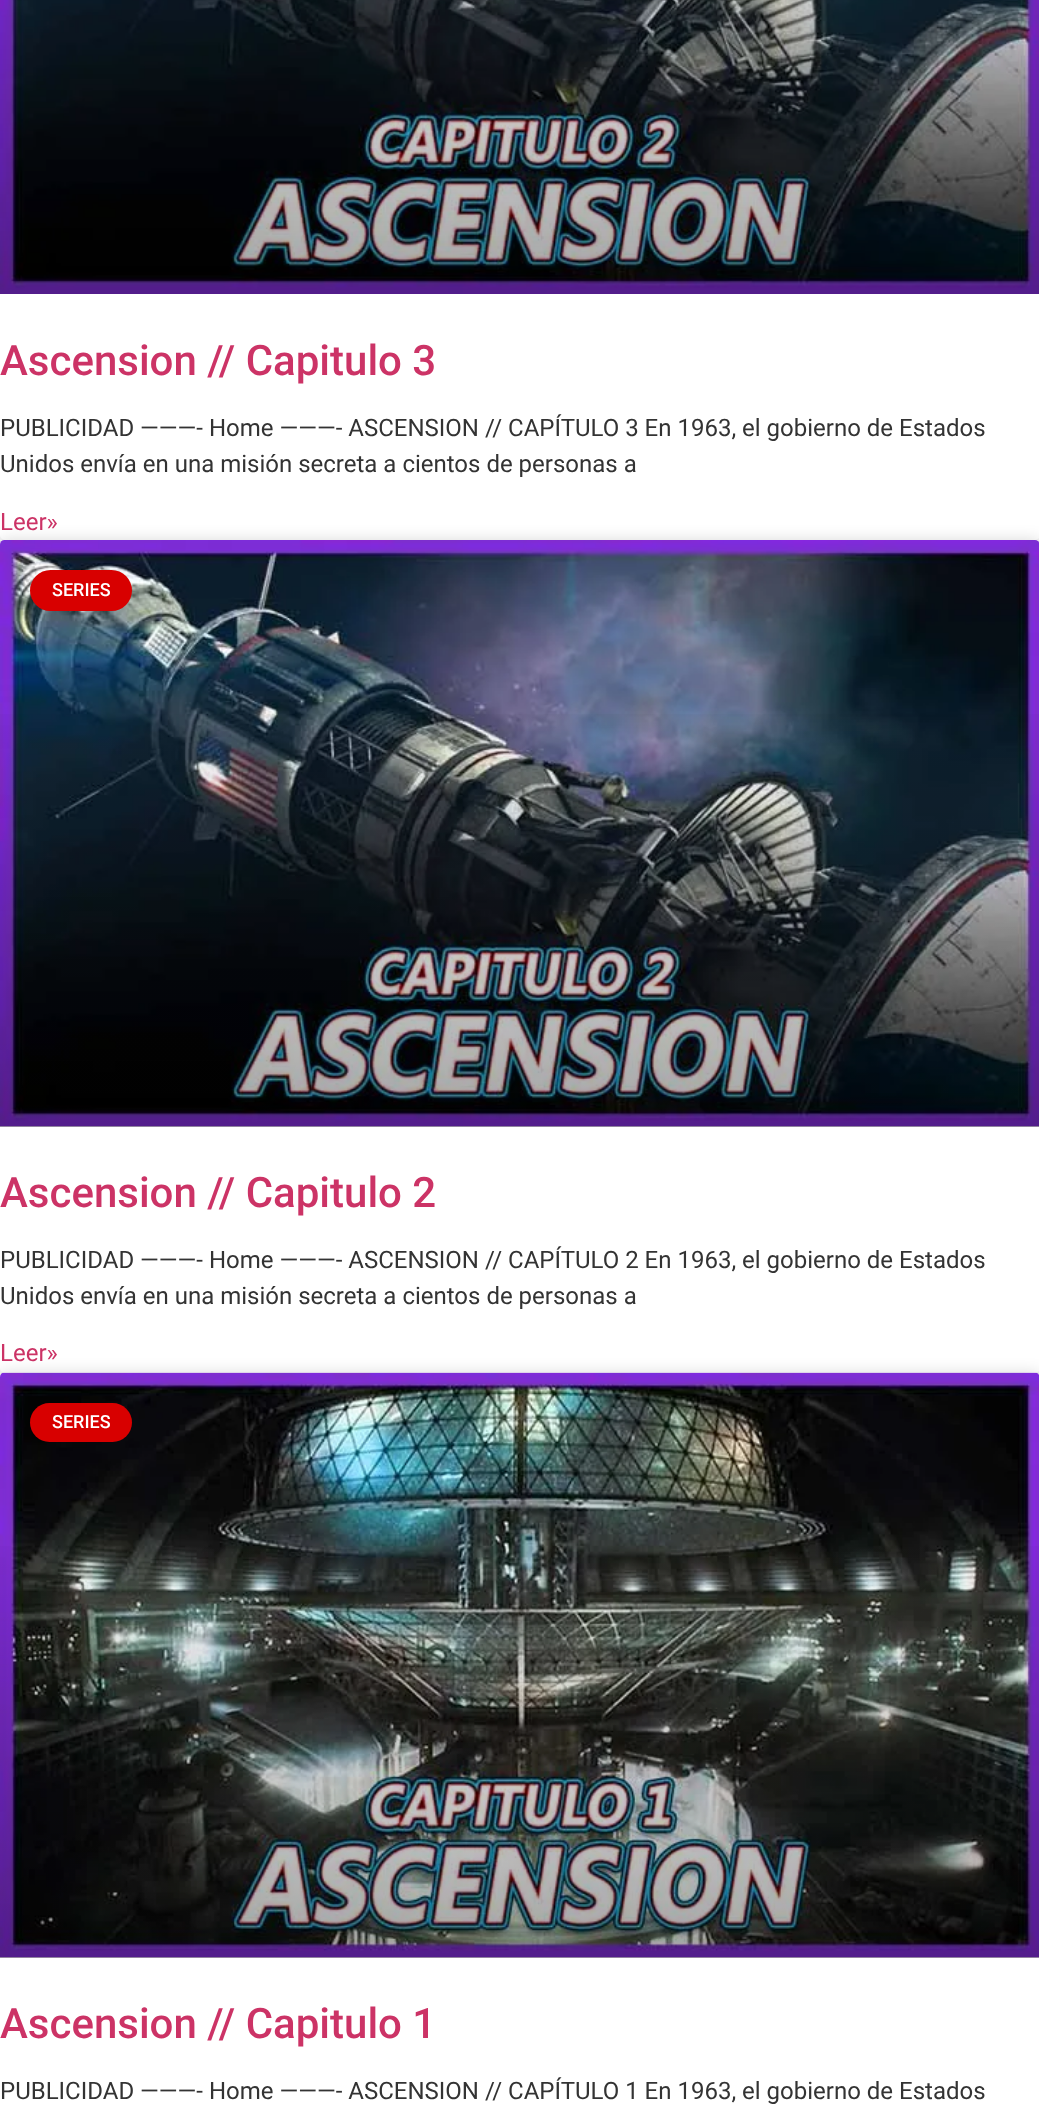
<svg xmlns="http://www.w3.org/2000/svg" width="1039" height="2125">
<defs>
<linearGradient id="g1" gradientUnits="userSpaceOnUse" x1="520" y1="1127" x2="520" y2="540"><stop offset="0" stop-color="#000" stop-opacity="0.35"/><stop offset="0.75" stop-color="#000" stop-opacity="0"/></linearGradient>
<linearGradient id="g2" gradientUnits="userSpaceOnUse" x1="520" y1="1958" x2="520" y2="1373"><stop offset="0" stop-color="#000" stop-opacity="0.35"/><stop offset="0.75" stop-color="#000" stop-opacity="0"/></linearGradient>
</defs>
<rect width="100%" height="100%" fill="#fff"/>
<rect y="-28" width="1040" height="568" rx="5" fill="#00000026" filter="blur(7.5px)"/>
<rect y="-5" width="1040" height="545" rx="5" fill="#fff"/>
<image x="0" y="0" width="1039" height="294" href="media/1.png"/>
<text x="0" y="375" style="font-family:Roboto;font-size:42px;font-weight:500;fill:#c36">Ascension // Capitulo 3</text>
<text x="0" y="436" style="font-family:Roboto;font-size:24px;fill:#333">PUBLICIDAD ———- Home ———- ASCENSION // CAPÍTULO 3 En 1963, el gobierno de Estados</text>
<text x="0" y="472" style="font-family:Roboto;font-size:24px;fill:#333">Unidos envía en una misión secreta a cientos de personas a</text>
<text x="0" y="530" style="font-family:Roboto;font-size:24px;fill:#c36">Leer»</text>
<rect y="540" width="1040" height="833" rx="5" fill="#00000026" filter="blur(7.5px)"/>
<rect y="540" width="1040" height="833" rx="5" fill="#fff"/>
<image x="0" y="540" width="1039" height="587" href="media/2.png"/>
<rect y="714" width="1039" height="413" fill="url(#g1)"/>
<rect x="30" y="570" width="102" height="41" rx="20.5" fill="#d80000"/>
<text x="52" y="596" style="font-family:Roboto;font-size:18px;font-weight:500;fill:#fff">SERIES</text>
<text x="0" y="1207" style="font-family:Roboto;font-size:42px;font-weight:500;fill:#c36">Ascension // Capitulo 2</text>
<text x="0" y="1268" style="font-family:Roboto;font-size:24px;fill:#333">PUBLICIDAD ———- Home ———- ASCENSION // CAPÍTULO 2 En 1963, el gobierno de Estados</text>
<text x="0" y="1304" style="font-family:Roboto;font-size:24px;fill:#333">Unidos envía en una misión secreta a cientos de personas a</text>
<text x="0" y="1361" style="font-family:Roboto;font-size:24px;fill:#c36">Leer»</text>
<rect y="1373" width="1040" height="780" rx="5" fill="#00000026" filter="blur(7.5px)"/>
<rect y="1373" width="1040" height="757" rx="5" fill="#fff"/>
<image x="0" y="1372" width="1039" height="586" href="media/3.png"/>
<rect y="1546" width="1039" height="412" fill="url(#g2)"/>
<rect x="30" y="1403" width="102" height="39" rx="19.5" fill="#d80000"/>
<text x="52" y="1428" style="font-family:Roboto;font-size:18px;font-weight:500;fill:#fff">SERIES</text>
<text x="0" y="2038" style="font-family:Roboto;font-size:42px;font-weight:500;fill:#c36">Ascension // Capitulo 1</text>
<text x="0" y="2099" style="font-family:Roboto;font-size:24px;fill:#333">PUBLICIDAD ———- Home ———- ASCENSION // CAPÍTULO 1 En 1963, el gobierno de Estados</text>
</svg>
